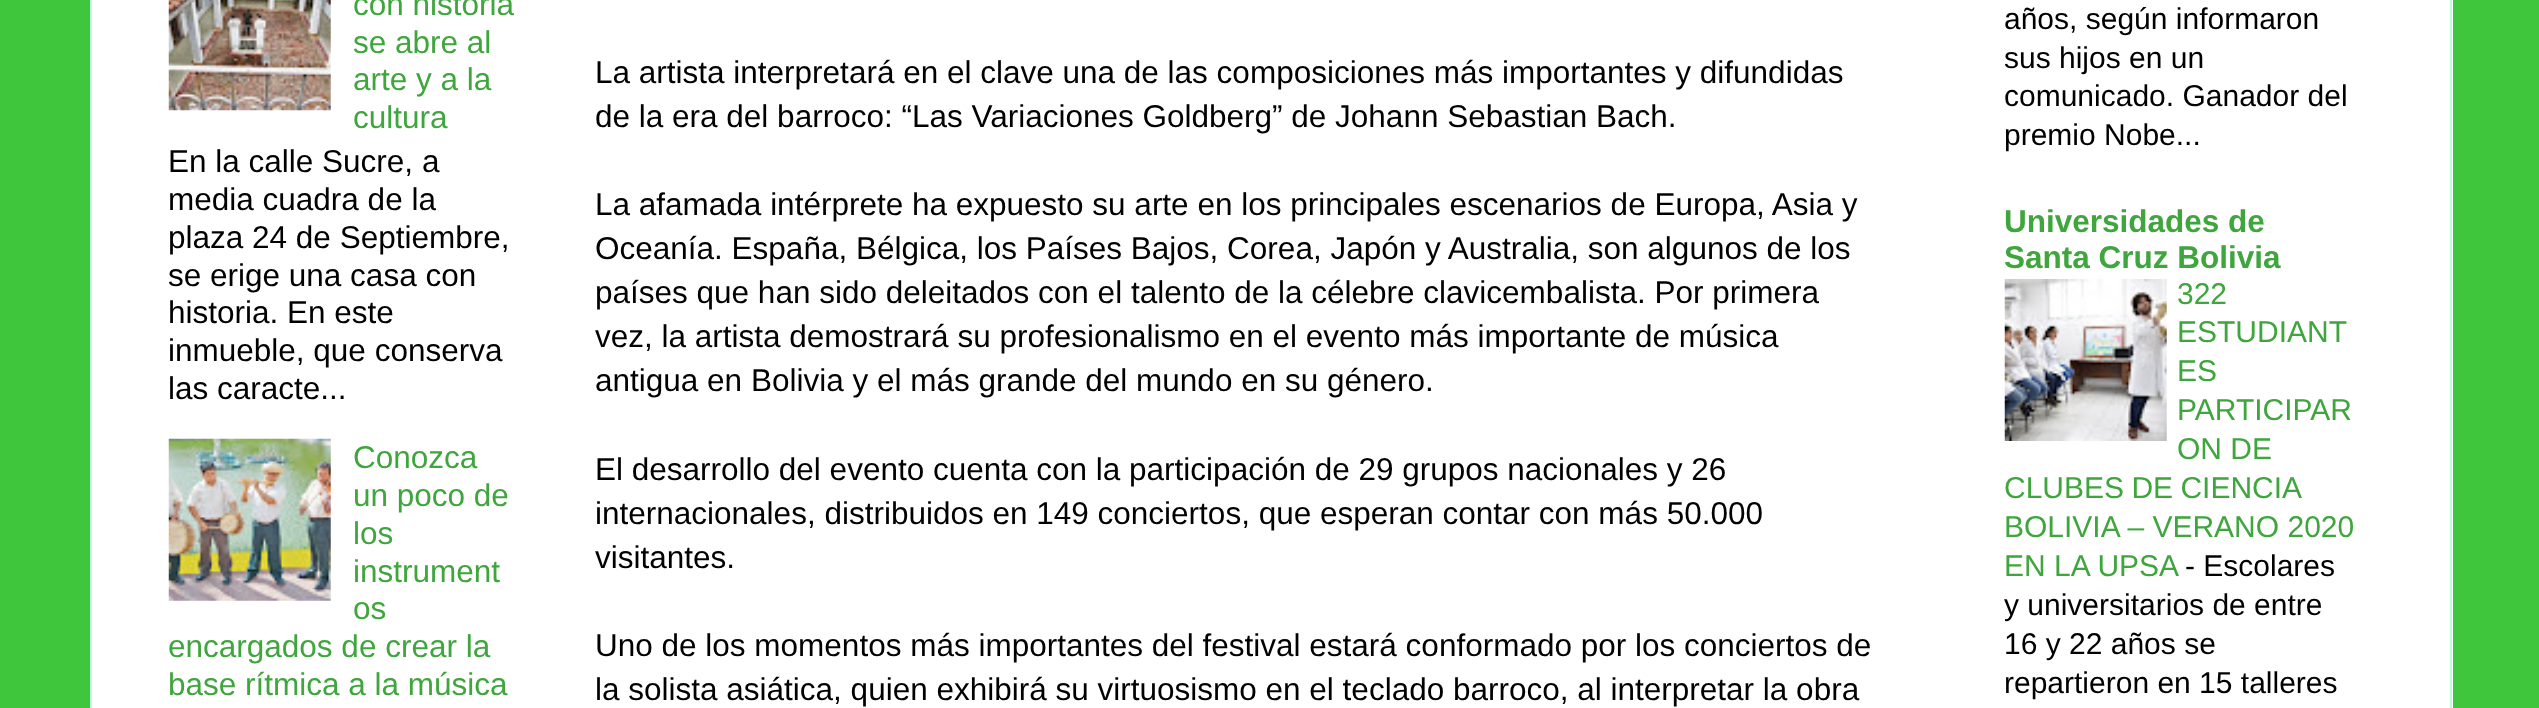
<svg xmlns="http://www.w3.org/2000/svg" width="2539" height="708">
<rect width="100%" height="100%" fill="#3fc63d"/>
<rect x="92" width="2361" height="708" fill="#fff"/>
<rect x="2450" width="2" height="708" fill="#bfd"/>
<rect x="90" width="2" height="708" fill="#bfd"/>
<image x="168" y="0" width="163" height="111" href="media/1.png"/>
<text x="353" y="15" style="font-family:Liberation Sans;font-size:31.5px;fill:#3fa53d">con historia</text>
<text x="353" y="53" style="font-family:Liberation Sans;font-size:31.5px;fill:#3fa53d">se abre al</text>
<text x="353" y="90" style="font-family:Liberation Sans;font-size:31.5px;fill:#3fa53d">arte y a la</text>
<text x="353" y="128" style="font-family:Liberation Sans;font-size:31.5px;fill:#3fa53d">cultura</text>
<text x="168" y="172" style="font-family:Liberation Sans;font-size:31.5px;fill:#000">En la calle Sucre, a</text>
<text x="168" y="210" style="font-family:Liberation Sans;font-size:31.5px;fill:#000">media cuadra de la</text>
<text x="168" y="248" style="font-family:Liberation Sans;font-size:31.5px;fill:#000">plaza 24 de Septiembre,</text>
<text x="168" y="286" style="font-family:Liberation Sans;font-size:31.5px;fill:#000">se erige una casa con</text>
<text x="168" y="323" style="font-family:Liberation Sans;font-size:31.5px;fill:#000">historia. En este</text>
<text x="168" y="361" style="font-family:Liberation Sans;font-size:31.5px;fill:#000">inmueble, que conserva</text>
<text x="168" y="399" style="font-family:Liberation Sans;font-size:31.5px;fill:#000">las caracte...</text>
<image x="168" y="438" width="163" height="163" href="media/2.png"/>
<text x="353" y="468" style="font-family:Liberation Sans;font-size:31.5px;fill:#3fa53d">Conozca</text>
<text x="353" y="506" style="font-family:Liberation Sans;font-size:31.5px;fill:#3fa53d">un poco de</text>
<text x="353" y="544" style="font-family:Liberation Sans;font-size:31.5px;fill:#3fa53d">los</text>
<text x="353" y="582" style="font-family:Liberation Sans;font-size:31.5px;fill:#3fa53d">instrument</text>
<text x="353" y="619" style="font-family:Liberation Sans;font-size:31.5px;fill:#3fa53d">os</text>
<text x="168" y="657" style="font-family:Liberation Sans;font-size:31.5px;fill:#3fa53d">encargados de crear la</text>
<text x="168" y="695" style="font-family:Liberation Sans;font-size:31.5px;fill:#3fa53d">base rítmica a la música</text>
<text x="595" y="83" style="font-family:Liberation Sans;font-size:31.5px;fill:#000">La artista interpretará en el clave una de las composiciones más importantes y difundidas</text>
<text x="595" y="127" style="font-family:Liberation Sans;font-size:31.5px;fill:#000">de la era del barroco: “Las Variaciones Goldberg” de Johann Sebastian Bach.</text>
<text x="595" y="215" style="font-family:Liberation Sans;font-size:31.5px;fill:#000">La afamada intérprete ha expuesto su arte en los principales escenarios de Europa, Asia y</text>
<text x="595" y="259" style="font-family:Liberation Sans;font-size:31.5px;fill:#000">Oceanía. España, Bélgica, los Países Bajos, Corea, Japón y Australia, son algunos de los</text>
<text x="595" y="303" style="font-family:Liberation Sans;font-size:31.5px;fill:#000">países que han sido deleitados con el talento de la célebre clavicembalista. Por primera</text>
<text x="595" y="347" style="font-family:Liberation Sans;font-size:31.5px;fill:#000">vez, la artista demostrará su profesionalismo en el evento más importante de música</text>
<text x="595" y="391" style="font-family:Liberation Sans;font-size:31.5px;fill:#000">antigua en Bolivia y el más grande del mundo en su género.</text>
<text x="595" y="480" style="font-family:Liberation Sans;font-size:31.5px;fill:#000">El desarrollo del evento cuenta con la participación de 29 grupos nacionales y 26</text>
<text x="595" y="524" style="font-family:Liberation Sans;font-size:31.5px;fill:#000">internacionales, distribuidos en 149 conciertos, que esperan contar con más 50.000</text>
<text x="595" y="568" style="font-family:Liberation Sans;font-size:31.5px;fill:#000">visitantes.</text>
<text x="595" y="656" style="font-family:Liberation Sans;font-size:31.5px;fill:#000">Uno de los momentos más importantes del festival estará conformado por los conciertos de</text>
<text x="595" y="700" style="font-family:Liberation Sans;font-size:31.5px;fill:#000">la solista asiática, quien exhibirá su virtuosismo en el teclado barroco, al interpretar la obra</text>
<text x="2004" y="29" style="font-family:Liberation Sans;font-size:30px;fill:#000">años, según informaron</text>
<text x="2004" y="68" style="font-family:Liberation Sans;font-size:30px;fill:#000">sus hijos en un</text>
<text x="2004" y="106" style="font-family:Liberation Sans;font-size:30px;fill:#000">comunicado. Ganador del</text>
<text x="2004" y="145" style="font-family:Liberation Sans;font-size:30px;fill:#000">premio Nobe...</text>
<text x="2004" y="232" style="font-family:Liberation Sans;font-size:31.5px;font-weight:bold;fill:#3fa53d">Universidades de</text>
<text x="2004" y="268" style="font-family:Liberation Sans;font-size:31.5px;font-weight:bold;fill:#3fa53d">Santa Cruz Bolivia</text>
<image x="2004" y="279" width="163" height="162" href="media/3.png"/>
<text x="2177" y="304" style="font-family:Liberation Sans;font-size:30px;fill:#3fa53d">322</text>
<text x="2177" y="342" style="font-family:Liberation Sans;font-size:30px;fill:#3fa53d">ESTUDIANT</text>
<text x="2177" y="381" style="font-family:Liberation Sans;font-size:30px;fill:#3fa53d">ES</text>
<text x="2177" y="420" style="font-family:Liberation Sans;font-size:30px;fill:#3fa53d">PARTICIPAR</text>
<text x="2177" y="459" style="font-family:Liberation Sans;font-size:30px;fill:#3fa53d">ON DE</text>
<text x="2004" y="498" word-spacing="-1" style="font-family:Liberation Sans;font-size:30px;fill:#3fa53d">CLUBES DE CIENCIA</text>
<text x="2004" y="537" style="font-family:Liberation Sans;font-size:30px;fill:#3fa53d">BOLIVIA – VERANO 2020</text>
<text x="2004" y="576" style="font-family:Liberation Sans;font-size:30px;fill:#3fa53d">EN LA UPSA</text>
<text x="2185" y="576" style="font-family:Liberation Sans;font-size:30px;fill:#000">- Escolares</text>
<text x="2004" y="615" style="font-family:Liberation Sans;font-size:30px;fill:#000">y universitarios de entre</text>
<text x="2004" y="654" style="font-family:Liberation Sans;font-size:30px;fill:#000">16 y 22 años se</text>
<text x="2004" y="693" style="font-family:Liberation Sans;font-size:30px;fill:#000">repartieron en 15 talleres</text>
</svg>
